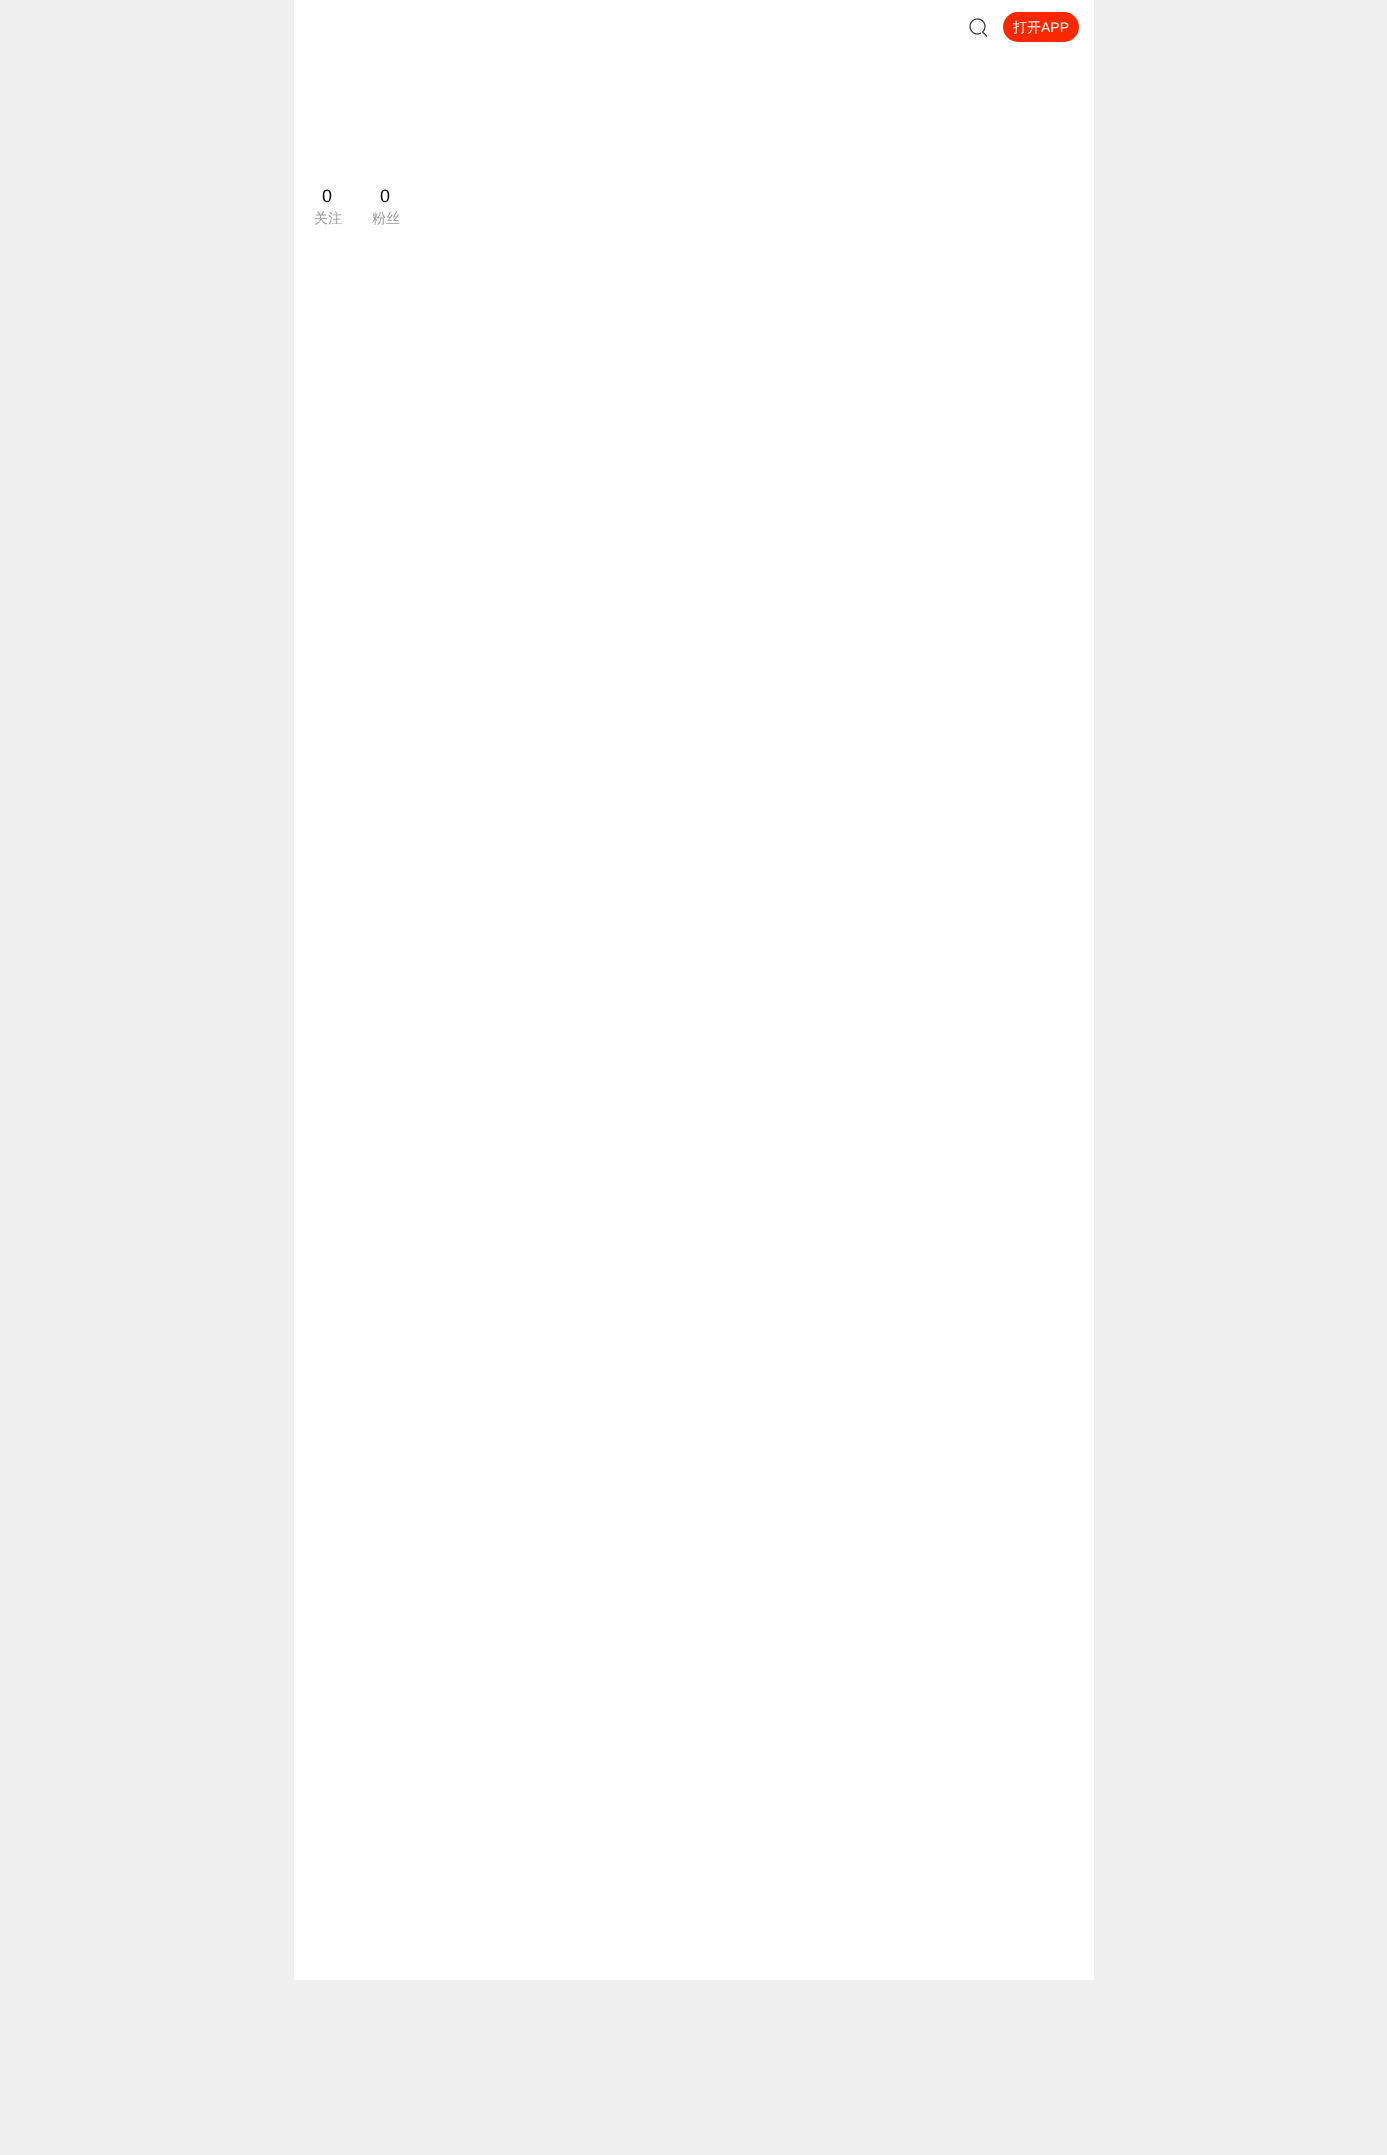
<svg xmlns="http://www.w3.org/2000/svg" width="1387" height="2155">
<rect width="100%" height="100%" fill="#f0f0f0"/>
<rect x="294" width="800" height="1980" fill="#fff"/>
<image x="969" y="18" width="19" height="19" href="media/1.png"/>
<rect x="1003" y="12" width="76" height="30" rx="15" fill="#fa2800"/>
<text x="1013" y="32" style="font-family:WenQuanYi Zen Hei;font-size:14px;font-weight:500;fill:#fff">打开</text>
<text x="1041" y="32" style="font-family:Liberation Sans;font-size:14px;fill:#fff">APP</text>
<text x="322" y="202" style="font-family:Liberation Sans;font-size:18px;fill:#000">0</text>
<text x="314" y="223" style="font-family:WenQuanYi Zen Hei;font-size:14px;font-weight:500;fill:#999">关注</text>
<text x="380" y="202" style="font-family:Liberation Sans;font-size:18px;fill:#000">0</text>
<text x="372" y="223" style="font-family:WenQuanYi Zen Hei;font-size:14px;font-weight:500;fill:#999">粉丝</text>
</svg>
